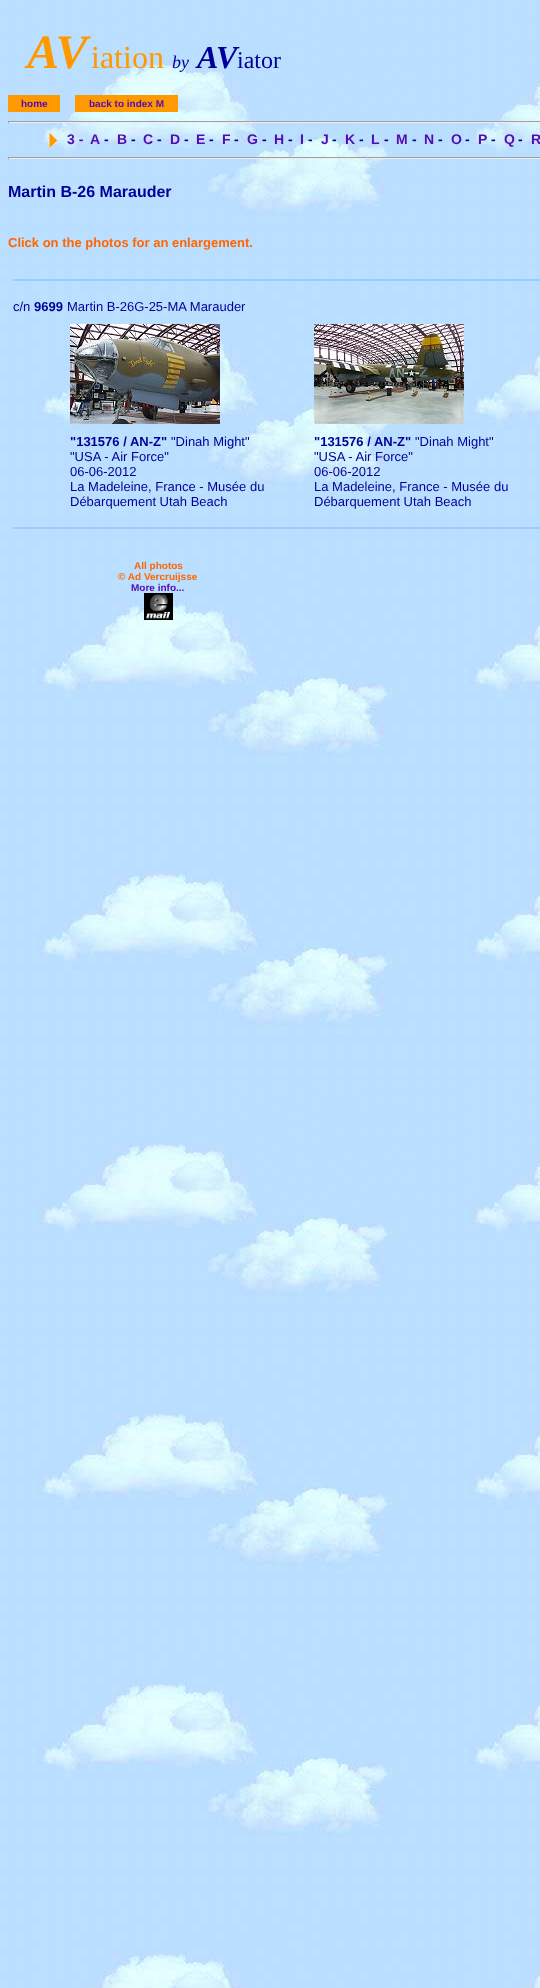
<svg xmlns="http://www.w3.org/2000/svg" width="540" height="1988">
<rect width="100%" height="100%" fill="#fff"/>
<image x="0" y="0" width="540" height="1988" href="media/1.png"/>
<text x="27" y="68" style="font-family:Liberation Serif;font-size:48px;font-weight:bold;font-style:italic;fill:#f90">AV</text>
<text x="91" y="68" style="font-family:Liberation Serif;font-size:32px;fill:#f90">iation</text>
<text x="172" y="68" style="font-family:Liberation Serif;font-size:18px;font-style:italic;fill:#009">by</text>
<text x="197" y="68" style="font-family:Liberation Serif;font-size:32px;font-weight:bold;font-style:italic;fill:#009">AV</text>
<text x="237" y="68" style="font-family:Liberation Serif;font-size:24px;fill:#009">iator</text>
<rect x="8" y="95" width="52" height="17" fill="#f90"/>
<text x="21" y="107" style="font-family:Liberation Sans;font-size:10px;font-weight:bold;fill:#530ab6">home</text>
<rect x="75" y="95" width="103" height="17" fill="#f90"/>
<text x="89" y="107" style="font-family:Liberation Sans;font-size:10px;font-weight:bold;fill:#530ab6">back to index M</text>
<rect x="8" y="121" width="532" height="1" fill="#9f9f9f"/>
<rect x="8" y="122" width="532" height="1" fill="#eee"/>
<rect x="8" y="121" width="1" height="2" fill="#9f9f9f"/>
<image x="49" y="133" width="9" height="15" href="media/2.png"/>
<text x="67" y="144" style="font-family:Liberation Sans;font-size:14px;font-weight:bold;fill:#530ab6">3 -</text>
<text x="90" y="144" style="font-family:Liberation Sans;font-size:14px;font-weight:bold;fill:#530ab6">A</text>
<text x="104" y="144" style="font-family:Liberation Sans;font-size:14px;font-weight:bold;fill:#009">-</text>
<text x="117" y="144" style="font-family:Liberation Sans;font-size:14px;font-weight:bold;fill:#530ab6">B</text>
<text x="131" y="144" style="font-family:Liberation Sans;font-size:14px;font-weight:bold;fill:#009">-</text>
<text x="143" y="144" style="font-family:Liberation Sans;font-size:14px;font-weight:bold;fill:#530ab6">C</text>
<text x="157" y="144" style="font-family:Liberation Sans;font-size:14px;font-weight:bold;fill:#009">-</text>
<text x="170" y="144" style="font-family:Liberation Sans;font-size:14px;font-weight:bold;fill:#530ab6">D</text>
<text x="184" y="144" style="font-family:Liberation Sans;font-size:14px;font-weight:bold;fill:#009">-</text>
<text x="196" y="144" style="font-family:Liberation Sans;font-size:14px;font-weight:bold;fill:#530ab6">E</text>
<text x="209" y="144" style="font-family:Liberation Sans;font-size:14px;font-weight:bold;fill:#009">-</text>
<text x="222" y="144" style="font-family:Liberation Sans;font-size:14px;font-weight:bold;fill:#530ab6">F</text>
<text x="234" y="144" style="font-family:Liberation Sans;font-size:14px;font-weight:bold;fill:#009">-</text>
<text x="247" y="144" style="font-family:Liberation Sans;font-size:14px;font-weight:bold;fill:#530ab6">G</text>
<text x="262" y="144" style="font-family:Liberation Sans;font-size:14px;font-weight:bold;fill:#009">-</text>
<text x="274" y="144" style="font-family:Liberation Sans;font-size:14px;font-weight:bold;fill:#530ab6">H</text>
<text x="288" y="144" style="font-family:Liberation Sans;font-size:14px;font-weight:bold;fill:#009">-</text>
<text x="300" y="144" style="font-family:Liberation Sans;font-size:14px;font-weight:bold;fill:#530ab6">I</text>
<text x="308" y="144" style="font-family:Liberation Sans;font-size:14px;font-weight:bold;fill:#009">-</text>
<text x="321" y="144" style="font-family:Liberation Sans;font-size:14px;font-weight:bold;fill:#530ab6">J</text>
<text x="332" y="144" style="font-family:Liberation Sans;font-size:14px;font-weight:bold;fill:#009">-</text>
<text x="345" y="144" style="font-family:Liberation Sans;font-size:14px;font-weight:bold;fill:#530ab6">K</text>
<text x="359" y="144" style="font-family:Liberation Sans;font-size:14px;font-weight:bold;fill:#009">-</text>
<text x="371" y="144" style="font-family:Liberation Sans;font-size:14px;font-weight:bold;fill:#530ab6">L</text>
<text x="384" y="144" style="font-family:Liberation Sans;font-size:14px;font-weight:bold;fill:#009">-</text>
<text x="396" y="144" style="font-family:Liberation Sans;font-size:14px;font-weight:bold;fill:#530ab6">M</text>
<text x="412" y="144" style="font-family:Liberation Sans;font-size:14px;font-weight:bold;fill:#009">-</text>
<text x="424" y="144" style="font-family:Liberation Sans;font-size:14px;font-weight:bold;fill:#530ab6">N</text>
<text x="438" y="144" style="font-family:Liberation Sans;font-size:14px;font-weight:bold;fill:#009">-</text>
<text x="451" y="144" style="font-family:Liberation Sans;font-size:14px;font-weight:bold;fill:#530ab6">O</text>
<text x="465" y="144" style="font-family:Liberation Sans;font-size:14px;font-weight:bold;fill:#009">-</text>
<text x="478" y="144" style="font-family:Liberation Sans;font-size:14px;font-weight:bold;fill:#530ab6">P</text>
<text x="491" y="144" style="font-family:Liberation Sans;font-size:14px;font-weight:bold;fill:#009">-</text>
<text x="504" y="144" style="font-family:Liberation Sans;font-size:14px;font-weight:bold;fill:#530ab6">Q</text>
<text x="518" y="144" style="font-family:Liberation Sans;font-size:14px;font-weight:bold;fill:#009">-</text>
<text x="531" y="144" style="font-family:Liberation Sans;font-size:14px;font-weight:bold;fill:#530ab6">R</text>
<rect x="8" y="157" width="532" height="1" fill="#9f9f9f"/>
<rect x="8" y="158" width="532" height="1" fill="#eee"/>
<rect x="8" y="157" width="1" height="2" fill="#9f9f9f"/>
<text x="8" y="197" style="font-family:Liberation Sans;font-size:16px;font-weight:bold;fill:#009">Martin B-26 Marauder</text>
<text x="8" y="247" style="font-family:Liberation Sans;font-size:13px;font-weight:bold;fill:#f60">Click on the photos for an enlargement.</text>
<rect x="13" y="279" width="527" height="2" fill="#9cf"/>
<text x="13" y="311" style="font-family:Liberation Sans;font-size:13px;fill:#009">c/n</text>
<text x="34" y="311" style="font-family:Liberation Sans;font-size:13px;font-weight:bold;fill:#009">9699</text>
<text x="67" y="311" style="font-family:Liberation Sans;font-size:13px;fill:#009">Martin B-26G-25-MA Marauder</text>
<image x="70" y="324" width="150" height="100" href="media/3.png"/>
<image x="314" y="324" width="150" height="100" href="media/4.png"/>
<text x="70" y="446" style="font-family:Liberation Sans;font-size:13px;font-weight:bold;fill:#009">"131576 / AN-Z"</text>
<text x="171" y="446" style="font-family:Liberation Sans;font-size:13px;fill:#009">"Dinah Might"</text>
<text x="70" y="461" style="font-family:Liberation Sans;font-size:13px;fill:#009">"USA - Air Force"</text>
<text x="70" y="476" style="font-family:Liberation Sans;font-size:13px;fill:#009">06-06-2012</text>
<text x="70" y="491" style="font-family:Liberation Sans;font-size:13px;fill:#009">La Madeleine, France - Musée du</text>
<text x="70" y="506" style="font-family:Liberation Sans;font-size:13px;fill:#009">Débarquement Utah Beach</text>
<text x="314" y="446" style="font-family:Liberation Sans;font-size:13px;font-weight:bold;fill:#009">"131576 / AN-Z"</text>
<text x="415" y="446" style="font-family:Liberation Sans;font-size:13px;fill:#009">"Dinah Might"</text>
<text x="314" y="461" style="font-family:Liberation Sans;font-size:13px;fill:#009">"USA - Air Force"</text>
<text x="314" y="476" style="font-family:Liberation Sans;font-size:13px;fill:#009">06-06-2012</text>
<text x="314" y="491" style="font-family:Liberation Sans;font-size:13px;fill:#009">La Madeleine, France - Musée du</text>
<text x="314" y="506" style="font-family:Liberation Sans;font-size:13px;fill:#009">Débarquement Utah Beach</text>
<rect x="13" y="527" width="527" height="2" fill="#9cf"/>
<text x="134" y="569" style="font-family:Liberation Sans;font-size:10px;font-weight:bold;fill:#f60">All photos</text>
<text x="118" y="580" style="font-family:Liberation Sans;font-size:10px;font-weight:bold;fill:#f60">© Ad Vercruijsse</text>
<text x="131" y="591" style="font-family:Liberation Sans;font-size:10px;font-weight:bold;fill:#530ab6">More info...</text>
<image x="144" y="593" width="29" height="27" href="media/5.png"/>
</svg>
